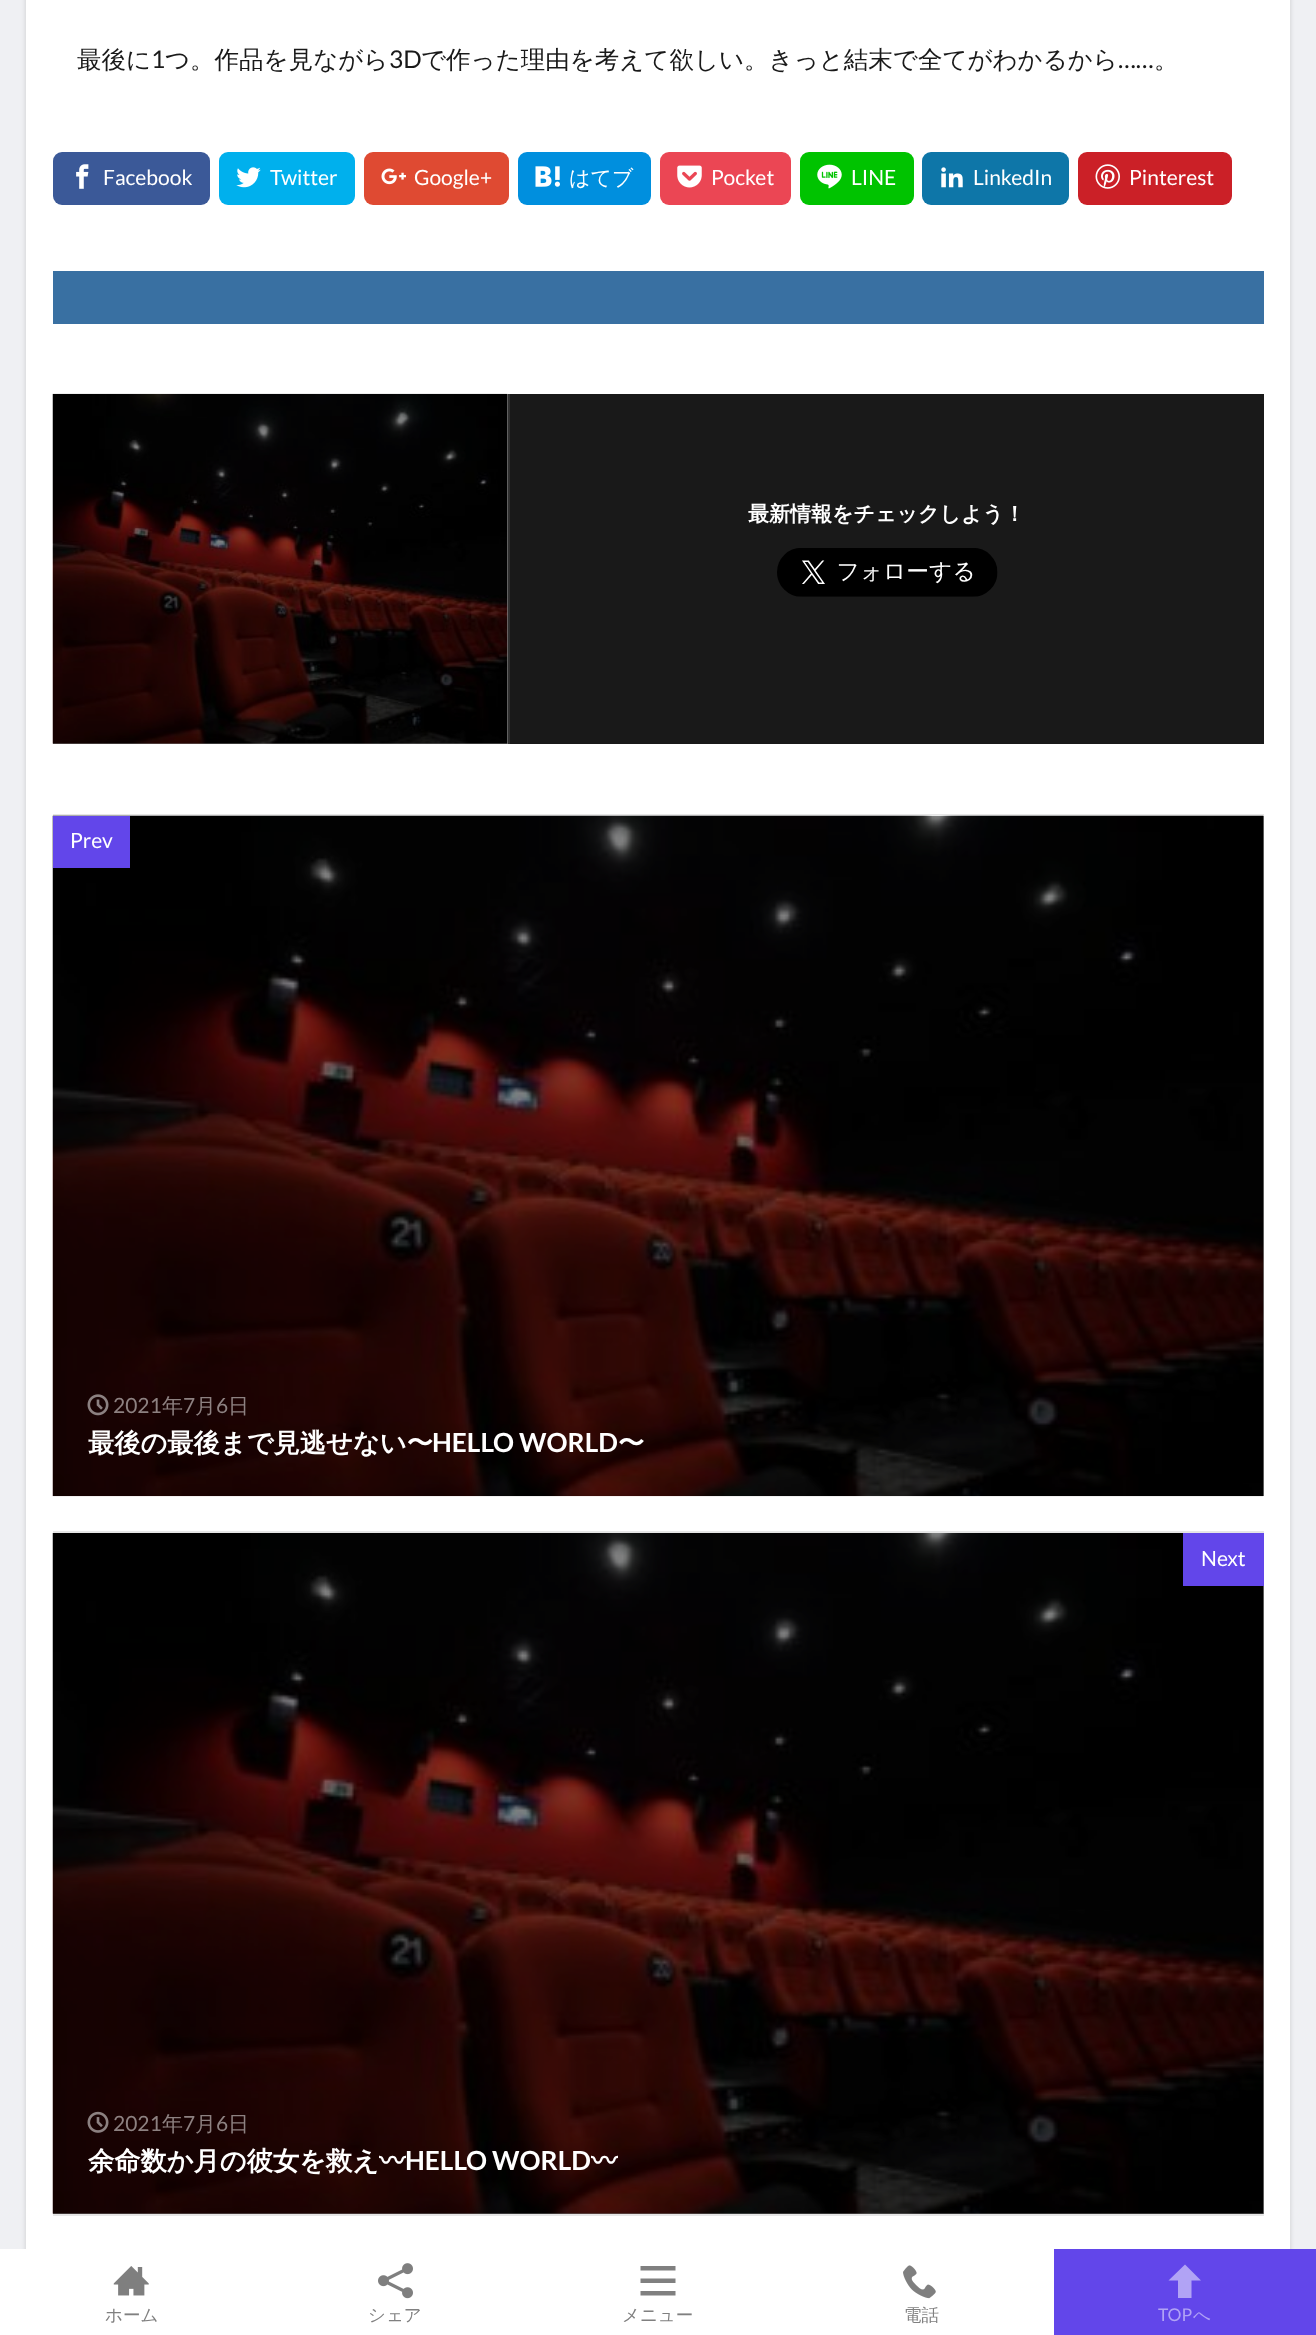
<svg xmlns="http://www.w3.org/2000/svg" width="1316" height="2335">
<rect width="100%" height="100%" fill="#eff0f3"/>
<rect x="26" y="-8" width="1264" height="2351" fill="#00000026" filter="blur(2.5px)"/>
<rect x="26" width="1264" height="2249" fill="#fff"/>
<rect x="53" y="394" width="455" height="350" fill="#808080"/>
<text x="77" y="68" style="font-family:WenQuanYi Zen Hei;font-size:24.5px;font-weight:500;fill:#191919">最後に</text>
<text x="151" y="68" style="font-family:Lato;font-size:24.5px;fill:#191919">1</text>
<text x="165" y="68" style="font-family:WenQuanYi Zen Hei;font-size:24.5px;font-weight:500;fill:#191919">つ。作品を見ながら</text>
<text x="389" y="68" style="font-family:Lato;font-size:24.5px;fill:#191919">3D</text>
<text x="421" y="68" style="font-family:WenQuanYi Zen Hei;font-size:24.5px;font-weight:500;fill:#191919">で作った理由を考えて欲しい。きっと結末で全てがわかるから</text>
<text x="1118" y="68" style="font-family:Lato;font-size:24.5px;fill:#191919">……</text>
<text x="1154" y="68" style="font-family:WenQuanYi Zen Hei;font-size:24.5px;font-weight:500;fill:#191919">。</text>
<rect x="53" y="152" width="157" height="53" rx="9" fill="#3b5998"/>
<image x="76" y="164" width="13" height="25" href="media/1.png"/>
<text x="103" y="185" style="font-family:Lato;font-size:21px;fill:#fff">Facebook</text>
<rect x="219" y="152" width="136" height="53" rx="9" fill="#00b0ed"/>
<image x="236" y="167" width="25" height="21" href="media/2.png"/>
<text x="270" y="185" style="font-family:Lato;font-size:21px;fill:#fff">Twitter</text>
<rect x="364" y="152" width="145" height="53" rx="9" fill="#df4a32"/>
<image x="381" y="168" width="25" height="17" href="media/3.png"/>
<text x="414" y="185" style="font-family:Lato;font-size:21px;fill:#fff">Google+</text>
<rect x="518" y="152" width="133" height="53" rx="9" fill="#008fde"/>
<image x="535" y="166" width="25" height="21" href="media/4.png"/>
<text x="569" y="185" style="font-family:WenQuanYi Zen Hei;font-size:21px;font-weight:500;fill:#fff">はてブ</text>
<rect x="660" y="152" width="131" height="53" rx="9" fill="#eb4654"/>
<image x="677" y="165" width="25" height="23" href="media/5.png"/>
<text x="711" y="185" style="font-family:Lato;font-size:21px;fill:#fff">Pocket</text>
<rect x="800" y="152" width="114" height="53" rx="9" fill="#00c300"/>
<image x="817" y="164" width="25" height="25" href="media/6.png"/>
<text x="851" y="185" style="font-family:Lato;font-size:21px;fill:#fff">LINE</text>
<rect x="922" y="152" width="147" height="53" rx="9" fill="#0e76a8"/>
<image x="941" y="167" width="22" height="21" href="media/7.png"/>
<text x="973" y="185" style="font-family:Lato;font-size:21px;fill:#fff">LinkedIn</text>
<rect x="1078" y="152" width="154" height="53" rx="9" fill="#cb2027"/>
<image x="1095" y="164" width="25" height="25" href="media/8.png"/>
<text x="1129" y="185" style="font-family:Lato;font-size:21px;fill:#fff">Pinterest</text>
<rect x="53" y="271" width="1211" height="53" fill="#3970a2"/>
<image x="52" y="393" width="456" height="351" href="media/9.png"/>
<rect x="510" y="394" width="754" height="350" fill="#191919"/>
<rect x="508" y="394" width="2" height="350" fill="#303030"/>
<text x="748" y="521" style="font-family:WenQuanYi Zen Hei;font-size:21px;font-weight:bold;fill:#fff">最新情報をチェックしよう！</text>
<image x="777" y="548" width="221" height="49" href="media/10.png"/>
<rect x="53" y="814" width="1211" height="2" fill="#e6e6e6"/>
<rect x="53" y="2214" width="1211" height="2" fill="#e6e6e6"/>
<rect x="53" y="1531" width="1211" height="2" fill="#e6e6e6"/>
<rect x="1263" y="816" width="1" height="680" fill="#7a7a7a"/>
<image x="52" y="815" width="1212" height="682" href="media/11.png"/>
<rect x="53" y="816" width="77" height="52" fill="#6246ea"/>
<text x="70" y="848" style="font-family:Lato;font-size:21px;fill:#fff">Prev</text>
<image x="87" y="1394" width="22" height="22" href="media/12.png"/>
<text x="113" y="1413" style="font-family:Lato;font-size:21px;fill:#8d8181">2021</text>
<text x="162" y="1413" style="font-family:WenQuanYi Zen Hei;font-size:21px;font-weight:500;fill:#8d8181">年</text>
<text x="183" y="1413" style="font-family:Lato;font-size:21px;fill:#8d8181">7</text>
<text x="195" y="1413" style="font-family:WenQuanYi Zen Hei;font-size:21px;font-weight:500;fill:#8d8181">月</text>
<text x="216" y="1413" style="font-family:Lato;font-size:21px;fill:#8d8181">6</text>
<text x="228" y="1413" style="font-family:WenQuanYi Zen Hei;font-size:21px;font-weight:500;fill:#8d8181">日</text>
<text x="88" y="1452" style="font-family:WenQuanYi Zen Hei;font-size:26.25px;font-weight:bold;fill:#fff">最後の最後まで見逃せない〜</text>
<text x="432" y="1452" style="font-family:Lato;font-size:26.25px;font-weight:bold;fill:#fff">HELLO WORLD</text>
<text x="618" y="1452" style="font-family:WenQuanYi Zen Hei;font-size:26.25px;font-weight:bold;fill:#fff">〜</text>
<rect x="53" y="1586" width="1211" height="628" fill="#7a7a7a"/>
<image x="52" y="1533" width="1212" height="681" href="media/13.png"/>
<rect x="1183" y="1533" width="81" height="53" fill="#6246ea"/>
<text x="1201" y="1566" style="font-family:Lato;font-size:21px;fill:#fff">Next</text>
<image x="87" y="2111" width="22" height="22" href="media/14.png"/>
<text x="113" y="2131" style="font-family:Lato;font-size:21px;fill:#8d8181">2021</text>
<text x="162" y="2131" style="font-family:WenQuanYi Zen Hei;font-size:21px;font-weight:500;fill:#8d8181">年</text>
<text x="183" y="2131" style="font-family:Lato;font-size:21px;fill:#8d8181">7</text>
<text x="195" y="2131" style="font-family:WenQuanYi Zen Hei;font-size:21px;font-weight:500;fill:#8d8181">月</text>
<text x="216" y="2131" style="font-family:Lato;font-size:21px;fill:#8d8181">6</text>
<text x="228" y="2131" style="font-family:WenQuanYi Zen Hei;font-size:21px;font-weight:500;fill:#8d8181">日</text>
<text x="88" y="2170" style="font-family:WenQuanYi Zen Hei;font-size:26.25px;font-weight:bold;fill:#fff">余命数か月の彼女を救え</text>
<text x="379" y="2170" style="font-family:Noto Sans CJK JP;font-size:26.25px;font-weight:bold;fill:#fff">〰</text>
<text x="405" y="2170" style="font-family:Lato;font-size:26.25px;font-weight:bold;fill:#fff">HELLO WORLD</text>
<text x="591" y="2170" style="font-family:Noto Sans CJK JP;font-size:26.25px;font-weight:bold;fill:#fff">〰</text>
<rect y="2249" width="1054" height="86" fill="#fff"/>
<image x="113" y="2266" width="36" height="30" href="media/15.png"/>
<text x="105" y="2321" style="font-family:WenQuanYi Zen Hei;font-size:17.5px;font-weight:500;fill:#808080">ホーム</text>
<image x="378" y="2263" width="35" height="36" href="media/16.png"/>
<text x="368" y="2321" style="font-family:WenQuanYi Zen Hei;font-size:17.5px;font-weight:500;fill:#808080">シェア</text>
<path d="M640.5 2266h35v4.5h-35zm0 12.5h35v4.5h-35zm0 12.5h35v4.5h-35z" fill="#808080"/>
<text x="622" y="2321" style="font-family:WenQuanYi Zen Hei;font-size:17.5px;font-weight:500;fill:#808080">メニュー</text>
<image x="903" y="2265" width="33" height="34" href="media/17.png"/>
<text x="904" y="2321" style="font-family:WenQuanYi Zen Hei;font-size:17.5px;font-weight:500;fill:#808080">電話</text>
<rect x="1054" y="2249" width="262" height="86" fill="#6246ea"/>
<path d="M1185 2264.5l-16.5 16h9.5v17.5h13.5v-17.5h9.5z" fill="#b1a3f5"/>
<text x="1158" y="2321" style="font-family:Lato;font-size:17.5px;fill:#b1a3f5">TOP</text>
<text x="1193" y="2321" style="font-family:WenQuanYi Zen Hei;font-size:17.5px;font-weight:500;fill:#b1a3f5">へ</text>
</svg>
